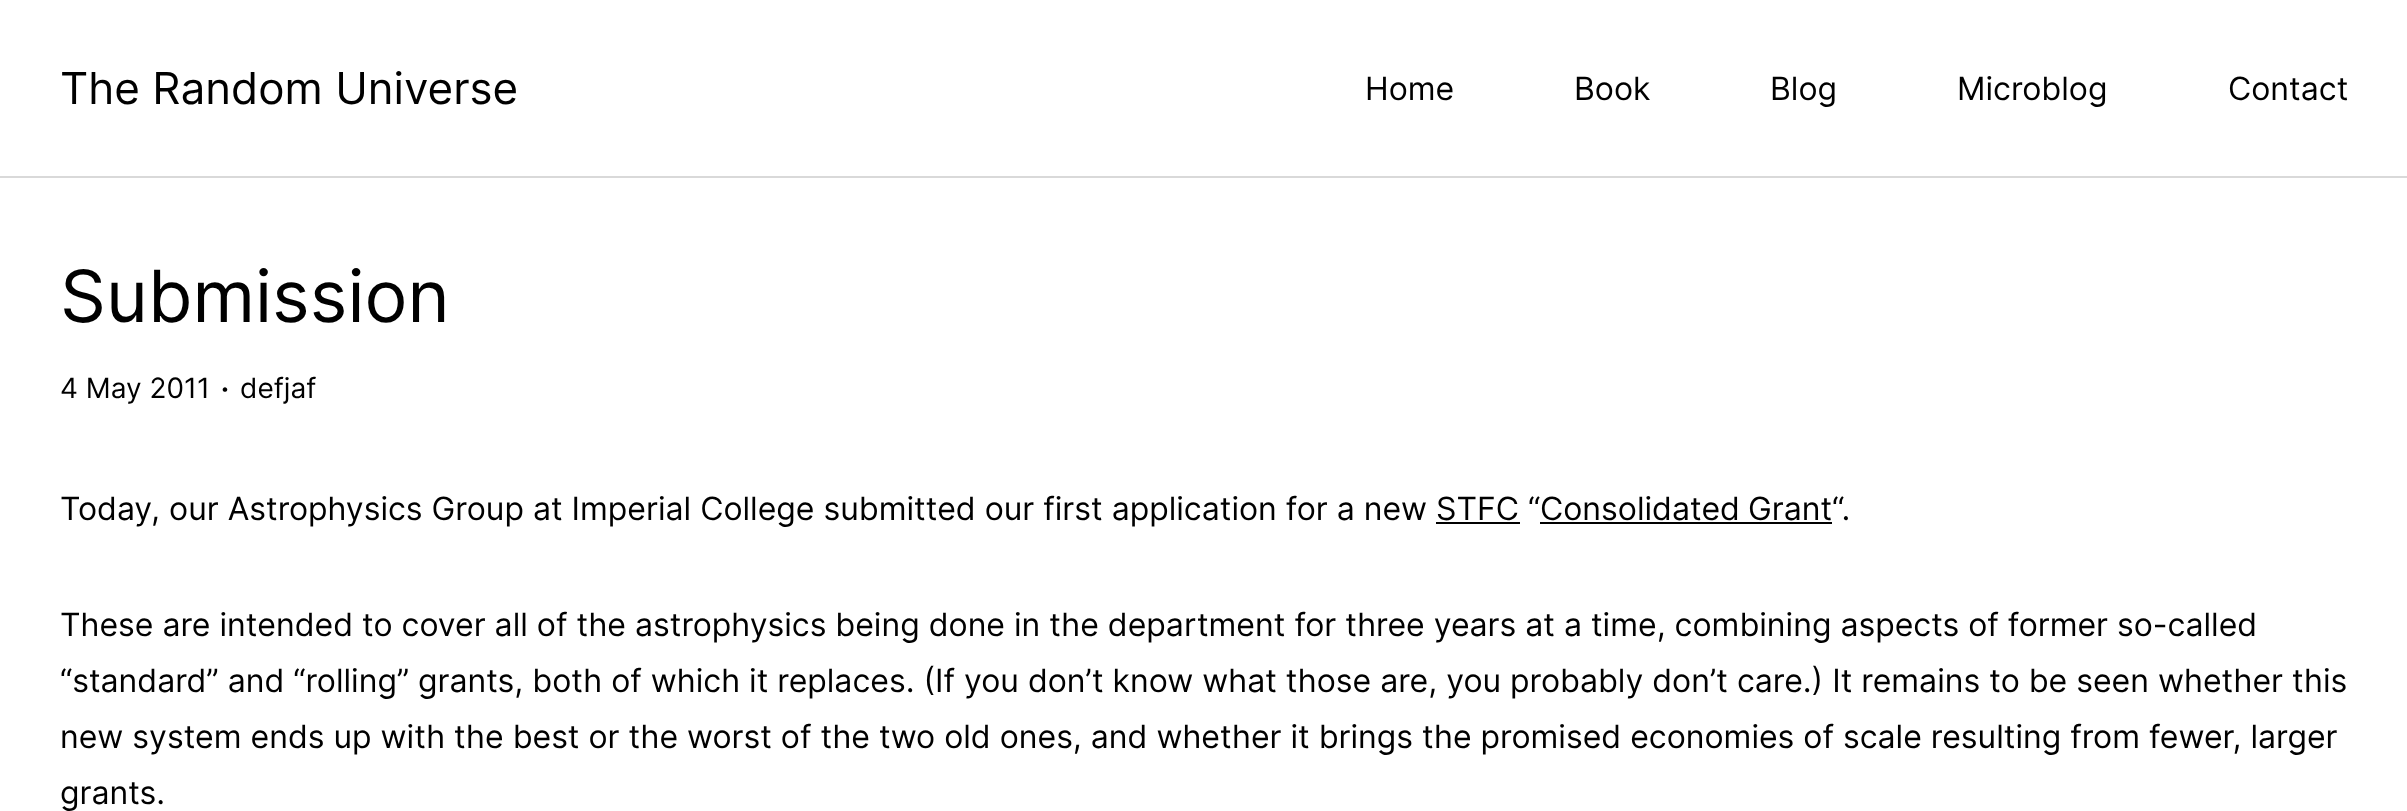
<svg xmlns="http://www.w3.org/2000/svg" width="2407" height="811">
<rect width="100%" height="100%" fill="#fff"/>
<rect y="176" width="2407" height="2" fill="#d9d9d9"/>
<text x="60" y="104" style="font-family:Inter;font-size:44px;fill:#000">The Random Universe</text>
<text x="1365" y="100" style="font-family:Inter;font-size:32px;fill:#000">Home</text>
<text x="1574" y="100" style="font-family:Inter;font-size:32px;fill:#000">Book</text>
<text x="1770" y="100" style="font-family:Inter;font-size:32px;fill:#000">Blog</text>
<text x="1957" y="100" style="font-family:Inter;font-size:32px;fill:#000">Microblog</text>
<text x="2228" y="100" style="font-family:Inter;font-size:32px;fill:#000">Contact</text>
<text x="60" y="322" style="font-family:Inter;font-size:72px;fill:#000">Submission</text>
<text x="60" y="398" style="font-family:Inter;font-size:28px;fill:#000">4 May 2011</text>
<text x="220" y="401" style="font-family:Inter;font-size:36px;fill:#000">·</text>
<text x="240" y="398" style="font-family:Inter;font-size:28px;fill:#000">defjaf</text>
<text x="60" y="520" style="font-family:Inter;font-size:32px;fill:#000">Today, our Astrophysics Group at Imperial College submitted our first application for a new STFC “</text>
<text x="1540" y="520" word-spacing="-1" style="font-family:Inter;font-size:32px;fill:#000">Consolidated Grant</text>
<rect x="1540" y="522" width="292" height="2" fill="#000"/>
<text x="1832" y="520" style="font-family:Inter;font-size:32px;fill:#000">“.</text>
<rect x="1436" y="522" width="84" height="2" fill="#000"/>
<text x="60" y="636" style="font-family:Inter;font-size:32px;fill:#000">These are intended to cover all of the astrophysics being done in the department for three years at a time, combining aspects of former so-called</text>
<text x="60" y="692" style="font-family:Inter;font-size:32px;fill:#000">“standard” and “rolling” grants, both of which it replaces. (If you don’t know what those are, you probably don’t care.) It remains to be seen whether this</text>
<text x="60" y="748" style="font-family:Inter;font-size:32px;fill:#000">new system ends up with the best or the worst of the two old ones, and whether it brings the promised economies of scale resulting from fewer, larger</text>
<text x="60" y="804" style="font-family:Inter;font-size:32px;fill:#000">grants.</text>
</svg>
